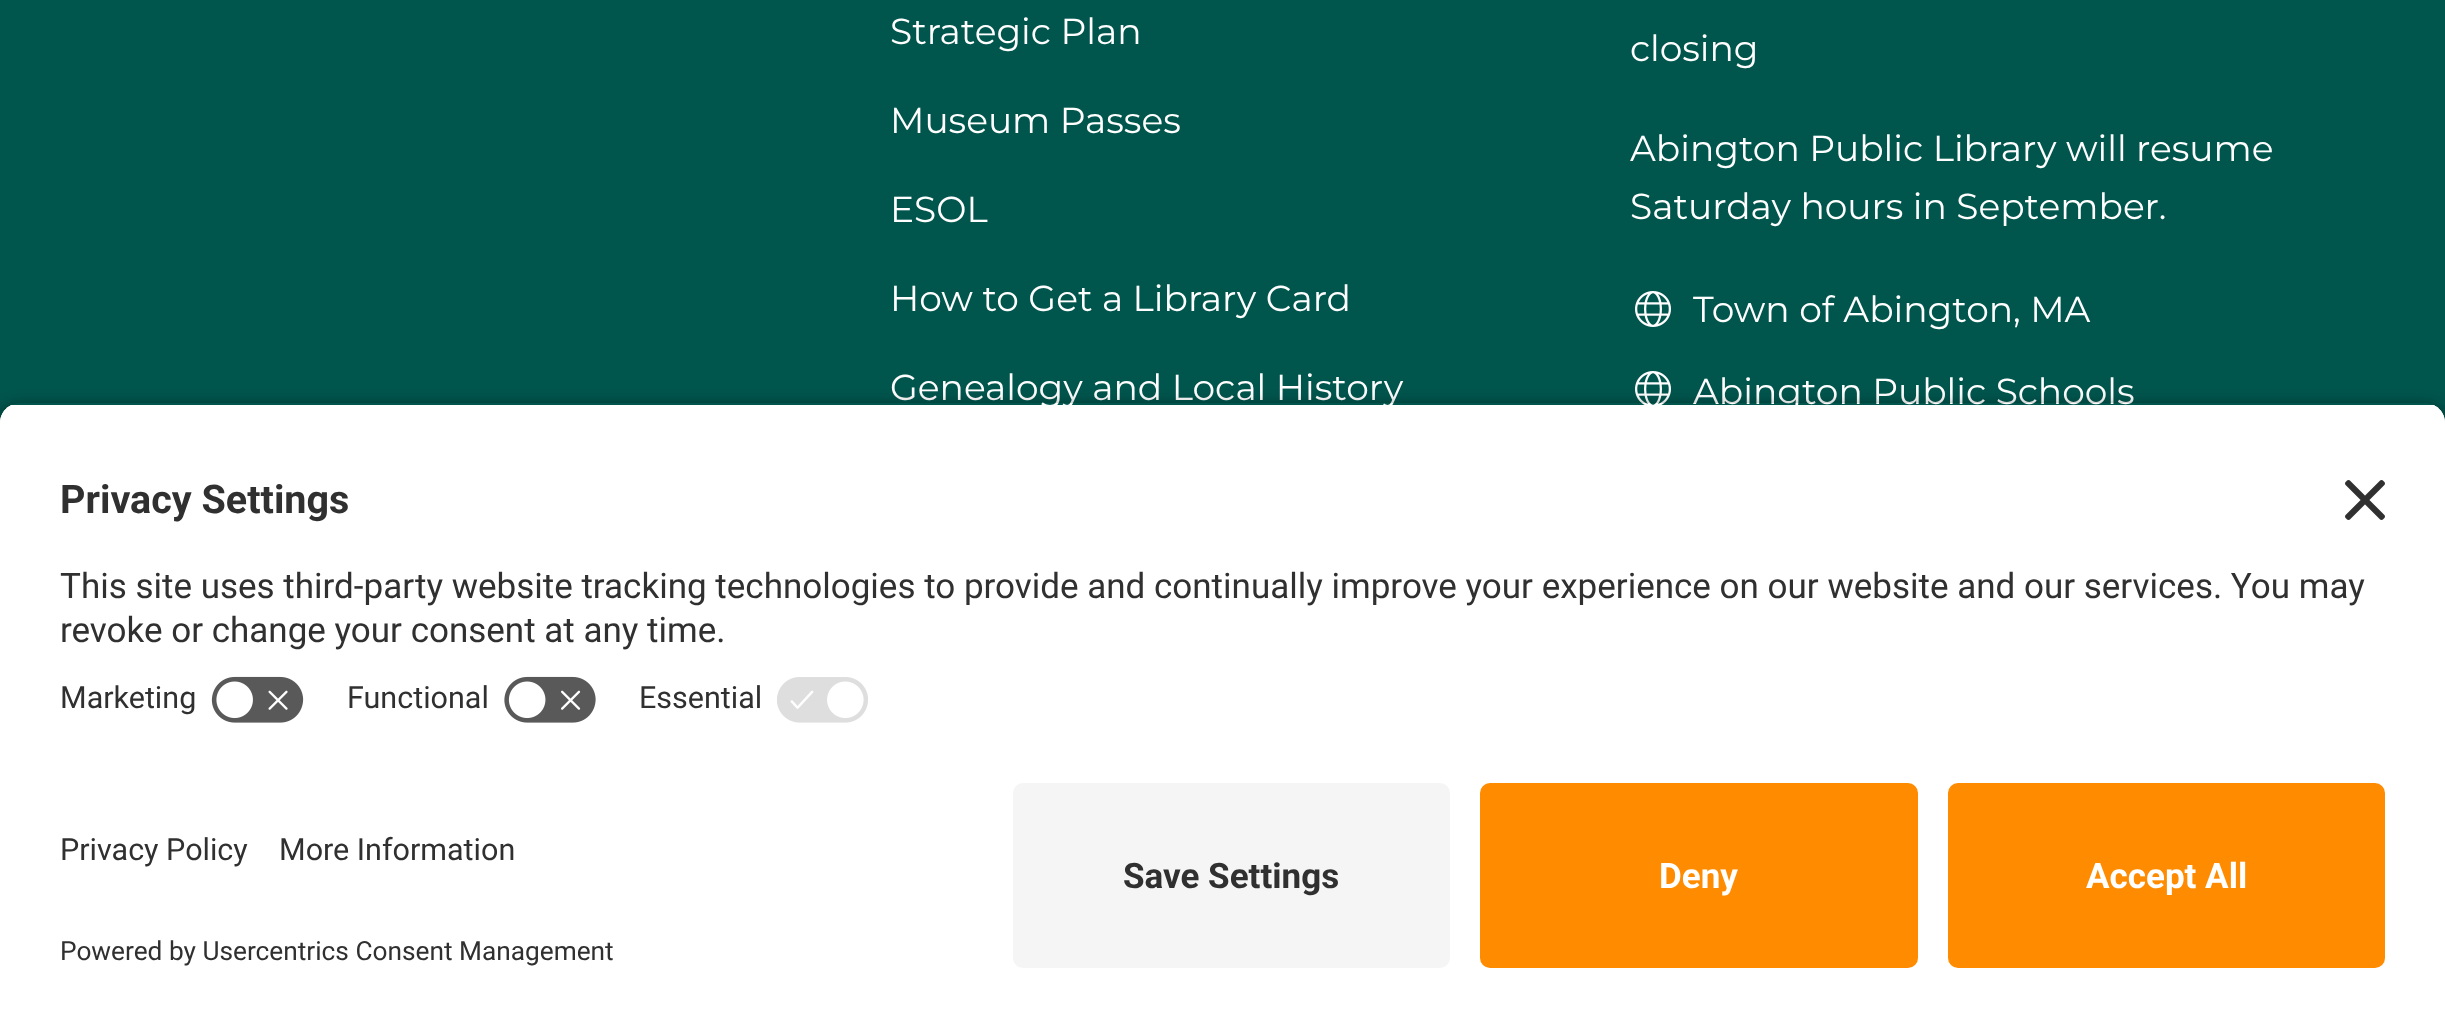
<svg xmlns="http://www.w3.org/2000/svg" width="2445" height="1026">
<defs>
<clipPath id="clip1"><path d="M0 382h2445v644h-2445zm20 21h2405c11 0 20 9 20 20v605h-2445v-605c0-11 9-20 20-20z" clip-rule="evenodd"/></clipPath>
<clipPath id="clip2"><path d="M20 403h2405c11 0 20 9 20 20v340h-2445v-340c0-11 9-20 20-20z"/></clipPath>
</defs>
<rect width="100%" height="100%" fill="#00554d"/>
<text x="890" y="44" style="font-family:Montserrat;font-size:36px;fill:#fff">Strategic Plan</text>
<text x="890" y="133" style="font-family:Montserrat;font-size:36px;fill:#fff">Museum Passes</text>
<text x="890" y="222" style="font-family:Montserrat;font-size:36px;fill:#fff">ESOL</text>
<text x="890" y="311" style="font-family:Montserrat;font-size:36px;fill:#fff">How to Get a Library Card</text>
<text x="890" y="400" style="font-family:Montserrat;font-size:36px;fill:#fff">Genealogy and Local History</text>
<text x="1630" y="61" style="font-family:Montserrat;font-size:36px;fill:#fff">closing</text>
<text x="1630" y="161" style="font-family:Montserrat;font-size:36px;fill:#fff">Abington Public Library will resume</text>
<text x="1630" y="219" style="font-family:Montserrat;font-size:36px;fill:#fff">Saturday hours in September.</text>
<image x="1635" y="291" width="36" height="36" href="media/1.png"/>
<text x="1693" y="322" style="font-family:Montserrat;font-size:36px;fill:#fff">Town of Abington, MA</text>
<image x="1635" y="371" width="36" height="34" href="media/2.png"/>
<text x="1693" y="404" style="font-family:Montserrat;font-size:36px;fill:#fff">Abington Public Schools</text>
<g clip-path="url(#clip1)">
<rect y="410" width="2445" height="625" rx="20" fill="#000000cc" filter="blur(9px)"/>
</g>
<g clip-path="url(#clip2)">
<rect y="405" width="2445" height="358" fill="#fff"/>
<rect y="405" width="2445" height="258" fill="#fff"/>
</g>
<text x="60" y="513" style="font-family:Roboto;font-size:39.5px;font-weight:bold;fill:#303030">Privacy Settings</text>
<image x="2345" y="480" width="40" height="40" href="media/3.png"/>
<text x="60" y="598" style="font-family:Roboto;font-size:35px;fill:#303030">This site uses third-party website tracking technologies to provide and continually improve your experience on our website and our services. You may</text>
<text x="60" y="642" style="font-family:Roboto;font-size:35px;fill:#303030">revoke or change your consent at any time.</text>
<text x="60" y="708" style="font-family:Roboto;font-size:30.5px;fill:#303030">Marketing</text>
<image x="211" y="676" width="93" height="47" href="media/4.png"/>
<text x="347" y="708" style="font-family:Roboto;font-size:30.5px;fill:#303030">Functional</text>
<image x="504" y="676" width="92" height="47" href="media/5.png"/>
<text x="639" y="708" style="font-family:Roboto;font-size:30.5px;fill:#303030">Essential</text>
<image x="777" y="677" width="91" height="46" href="media/6.png"/>
<rect y="763" width="2445" height="263" fill="#fff"/>
<text x="60" y="860" style="font-family:Roboto;font-size:30.5px;fill:#303030">Privacy Policy</text>
<text x="279" y="860" style="font-family:Roboto;font-size:30.5px;fill:#303030">More Information</text>
<text x="60" y="960" style="font-family:Roboto;font-size:26.25px;fill:#303030">Powered by Usercentrics Consent Management</text>
<rect x="1013" y="783" width="437" height="185" rx="10" fill="#f5f5f5"/>
<text x="1123" y="888" style="font-family:Roboto;font-size:35px;font-weight:bold;fill:#303030">Save Settings</text>
<rect x="1480" y="783" width="438" height="185" rx="10" fill="#ff8c00"/>
<text x="1659" y="888" style="font-family:Roboto;font-size:35px;font-weight:bold;fill:#fff">Deny</text>
<rect x="1948" y="783" width="437" height="185" rx="10" fill="#ff8c00"/>
<text x="2086" y="888" style="font-family:Roboto;font-size:35px;font-weight:bold;fill:#fff">Accept All</text>
</svg>
